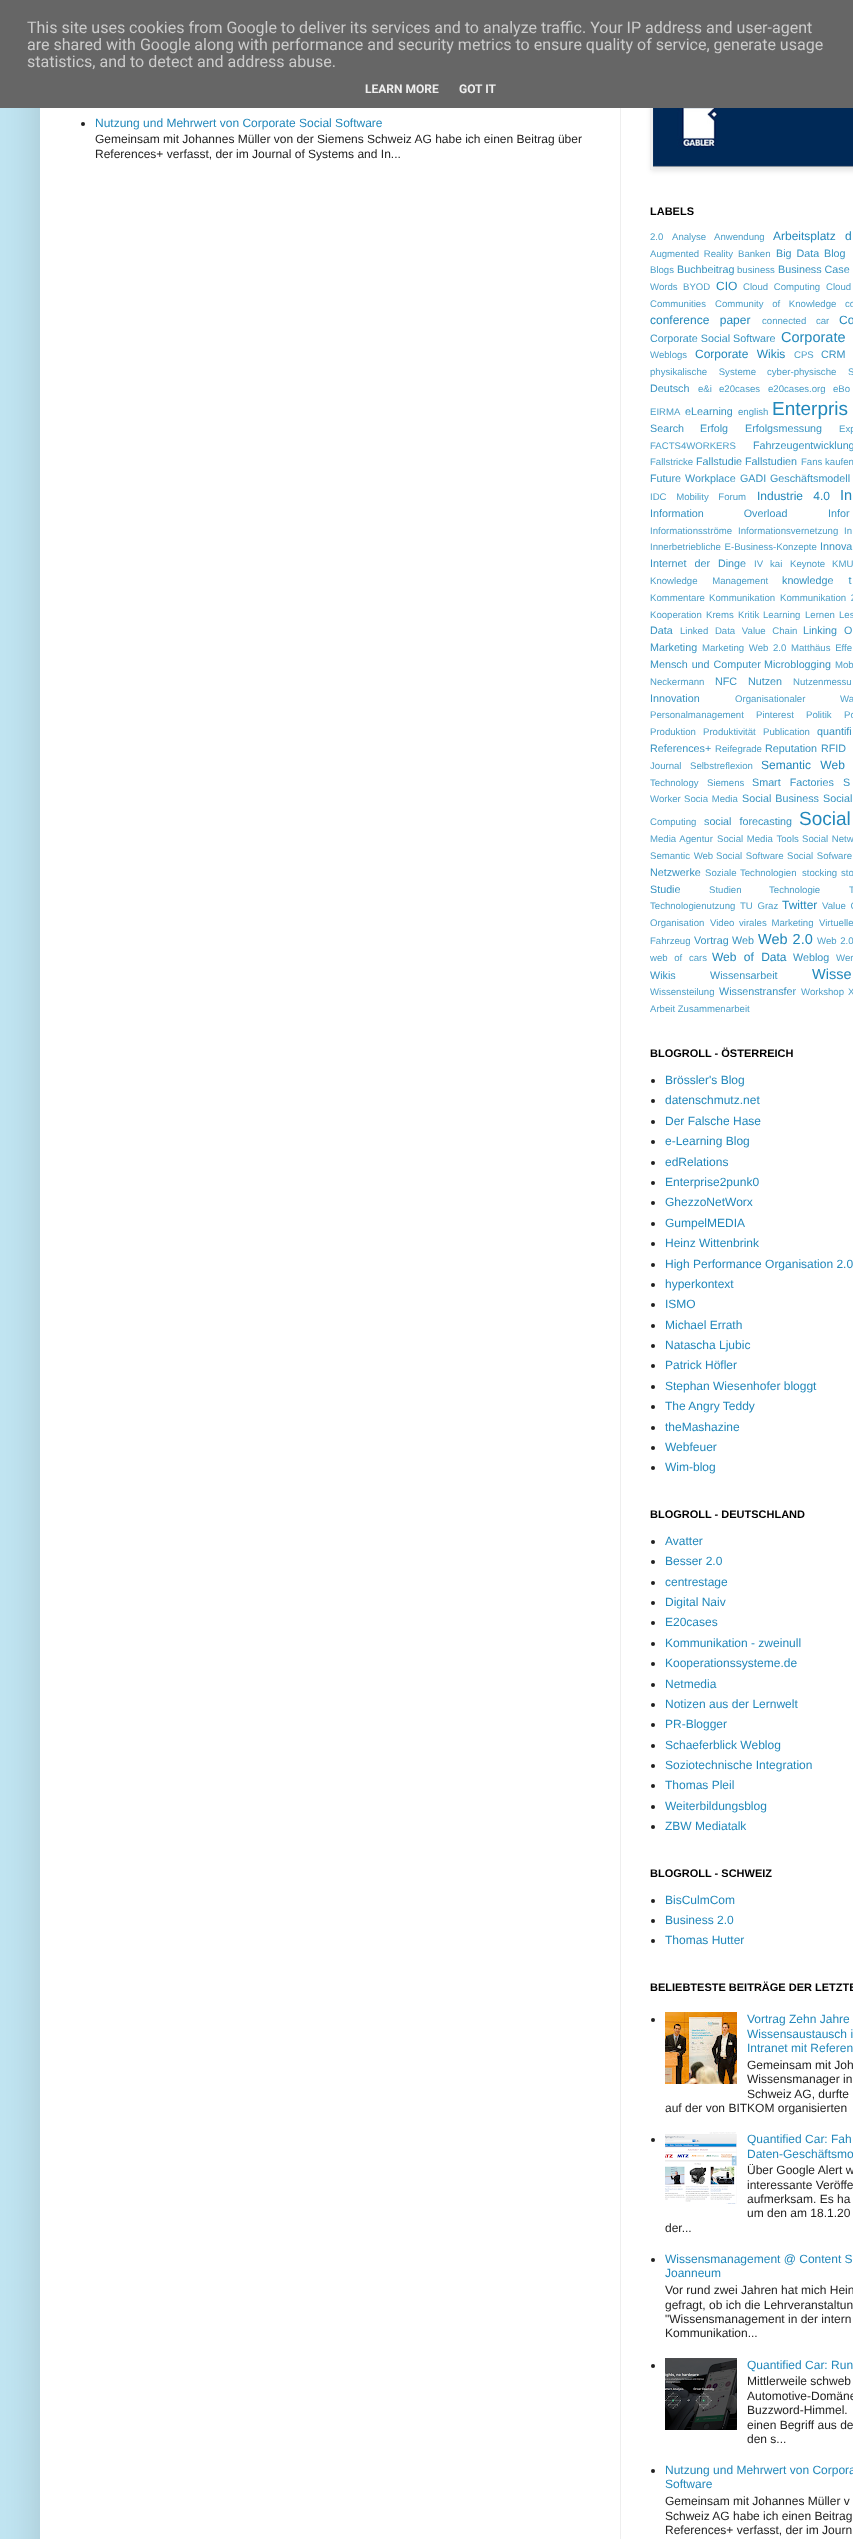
<svg xmlns="http://www.w3.org/2000/svg" width="853" height="2539">
<rect width="100%" height="100%" fill="#c1e5f2"/>
<rect x="40" y="-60" width="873" height="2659" fill="#00000026" filter="blur(20px)"/>
<rect x="40" y="108" width="813" height="2431" fill="#fff"/>
<rect x="651" y="-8" width="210" height="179" fill="#0000001a" filter="blur(2.5px)"/>
<rect x="650.5" y="-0.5" width="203" height="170" fill="none" stroke="#eee"/>
<rect width="853" height="108" fill="#666"/>
<text x="27" y="33" style="font-family:Roboto;font-size:16px;fill:#ccc">This site uses cookies from Google to deliver its services and to analyze traffic. Your IP address and user-agent</text>
<text x="27" y="50" style="font-family:Roboto;font-size:16px;fill:#ccc">are shared with Google along with performance and security metrics to ensure quality of service, generate usage</text>
<text x="27" y="67" style="font-family:Roboto;font-size:16px;fill:#ccc">statistics, and to detect and address abuse.</text>
<text x="365" y="93" style="font-family:Roboto;font-size:12px;font-weight:bold;fill:#eee">LEARN MORE</text>
<text x="459" y="93" style="font-family:Roboto;font-size:12px;font-weight:bold;fill:#eee">GOT IT</text>
<rect x="620" y="108" width="1" height="2431" fill="#eee"/>
<circle cx="83" cy="124" r="2" fill="#222"/>
<text x="95" y="127" style="font-family:Liberation Sans;font-size:12px;fill:#28b">Nutzung und Mehrwert von Corporate Social Software</text>
<text x="95" y="143" style="font-family:Liberation Sans;font-size:12px;fill:#222">Gemeinsam mit Johannes Müller von der Siemens Schweiz AG habe ich einen Beitrag über</text>
<text x="95" y="158" style="font-family:Liberation Sans;font-size:12px;fill:#222">References+ verfasst, der im Journal of Systems and In...</text>
<image x="653" y="108" width="200" height="59" href="media/1.png"/>
<text x="650" y="215" style="font-family:Liberation Sans;font-size:11px;font-weight:bold;fill:#000">LABELS</text>
<text x="650" y="240" style="font-family:Liberation Sans;font-size:9.6px;fill:#4ea0c9">2.0</text>
<text x="672" y="240" style="font-family:Liberation Sans;font-size:9.6px;fill:#4ea0c9">Analyse</text>
<text x="714" y="240" style="font-family:Liberation Sans;font-size:9.6px;fill:#4ea0c9">Anwendung</text>
<text x="773" y="240" word-spacing="6" style="font-family:Liberation Sans;font-size:12px;fill:#28b">Arbeitsplatz d</text>
<text x="650" y="257" word-spacing="2" style="font-family:Liberation Sans;font-size:9.6px;fill:#4ea0c9">Augmented Reality</text>
<text x="738" y="257" style="font-family:Liberation Sans;font-size:9.6px;fill:#4ea0c9">Banken</text>
<text x="776" y="257" word-spacing="2" style="font-family:Liberation Sans;font-size:10.75px;fill:#3894c2">Big Data</text>
<text x="824" y="257" style="font-family:Liberation Sans;font-size:10.75px;fill:#3894c2">Blog</text>
<text x="650" y="273" style="font-family:Liberation Sans;font-size:9.6px;fill:#4ea0c9">Blogs</text>
<text x="677" y="273" style="font-family:Liberation Sans;font-size:10.75px;fill:#3894c2">Buchbeitrag</text>
<text x="737" y="273" style="font-family:Liberation Sans;font-size:9.6px;fill:#4ea0c9">business</text>
<text x="778" y="273" style="font-family:Liberation Sans;font-size:10.75px;fill:#3894c2">Business Case</text>
<text x="650" y="290" style="font-family:Liberation Sans;font-size:9.6px;fill:#4ea0c9">Words</text>
<text x="683" y="290" style="font-family:Liberation Sans;font-size:9.6px;fill:#4ea0c9">BYOD</text>
<text x="716" y="290" style="font-family:Liberation Sans;font-size:12px;fill:#28b">CIO</text>
<text x="743" y="290" word-spacing="3" style="font-family:Liberation Sans;font-size:9.6px;fill:#4ea0c9">Cloud Computing</text>
<text x="826" y="290" word-spacing="3" style="font-family:Liberation Sans;font-size:9.6px;fill:#4ea0c9">Cloud</text>
<text x="650" y="307" style="font-family:Liberation Sans;font-size:9.6px;fill:#4ea0c9">Communities</text>
<text x="715" y="307" word-spacing="6" style="font-family:Liberation Sans;font-size:9.6px;fill:#4ea0c9">Community of Knowledge</text>
<text x="845" y="307" word-spacing="6" style="font-family:Liberation Sans;font-size:9.6px;fill:#4ea0c9">co</text>
<text x="650" y="324" word-spacing="7" style="font-family:Liberation Sans;font-size:12px;fill:#28b">conference paper</text>
<text x="762" y="324" word-spacing="7" style="font-family:Liberation Sans;font-size:9.6px;fill:#4ea0c9">connected car</text>
<text x="839" y="324" style="font-family:Liberation Sans;font-size:12px;fill:#28b">Co</text>
<text x="650" y="342" style="font-family:Liberation Sans;font-size:10.75px;fill:#3894c2">Corporate Social Software</text>
<text x="781" y="342" style="font-family:Liberation Sans;font-size:14.5px;fill:#28b">Corporate</text>
<text x="650" y="358" style="font-family:Liberation Sans;font-size:9.6px;fill:#4ea0c9">Weblogs</text>
<text x="695" y="358" word-spacing="5" style="font-family:Liberation Sans;font-size:12px;fill:#28b">Corporate Wikis</text>
<text x="794" y="358" style="font-family:Liberation Sans;font-size:9.6px;fill:#4ea0c9">CPS</text>
<text x="821" y="358" style="font-family:Liberation Sans;font-size:10.75px;fill:#3894c2">CRM</text>
<text x="650" y="375" word-spacing="9" style="font-family:Liberation Sans;font-size:9.6px;fill:#4ea0c9">physikalische Systeme</text>
<text x="767" y="375" word-spacing="9" style="font-family:Liberation Sans;font-size:9.6px;fill:#4ea0c9">cyber-physische S</text>
<text x="650" y="392" style="font-family:Liberation Sans;font-size:10.75px;fill:#3894c2">Deutsch</text>
<text x="698" y="392" style="font-family:Liberation Sans;font-size:9.6px;fill:#4ea0c9">e&amp;i</text>
<text x="719" y="392" style="font-family:Liberation Sans;font-size:9.6px;fill:#4ea0c9">e20cases</text>
<text x="768" y="392" style="font-family:Liberation Sans;font-size:9.6px;fill:#4ea0c9">e20cases.org</text>
<text x="833" y="392" style="font-family:Liberation Sans;font-size:9.6px;fill:#4ea0c9">eBo</text>
<text x="650" y="415" style="font-family:Liberation Sans;font-size:9.6px;fill:#4ea0c9">EIRMA</text>
<text x="685" y="415" style="font-family:Liberation Sans;font-size:10.75px;fill:#3894c2">eLearning</text>
<text x="738" y="415" style="font-family:Liberation Sans;font-size:9.6px;fill:#4ea0c9">english</text>
<text x="772" y="415" word-spacing="2" style="font-family:Liberation Sans;font-size:19px;fill:#28b">Enterpris</text>
<text x="650" y="432" style="font-family:Liberation Sans;font-size:10.75px;fill:#3894c2">Search</text>
<text x="700" y="432" style="font-family:Liberation Sans;font-size:10.75px;fill:#3894c2">Erfolg</text>
<text x="745" y="432" style="font-family:Liberation Sans;font-size:10.75px;fill:#3894c2">Erfolgsmessung</text>
<text x="839" y="432" style="font-family:Liberation Sans;font-size:9.6px;fill:#4ea0c9">Exp</text>
<text x="650" y="449" style="font-family:Liberation Sans;font-size:9.6px;fill:#4ea0c9">FACTS4WORKERS</text>
<text x="753" y="449" style="font-family:Liberation Sans;font-size:10.75px;fill:#3894c2">Fahrzeugentwicklung</text>
<text x="650" y="465" style="font-family:Liberation Sans;font-size:9.6px;fill:#4ea0c9">Fallstricke</text>
<text x="696" y="465" style="font-family:Liberation Sans;font-size:10.75px;fill:#3894c2">Fallstudie Fallstudien</text>
<text x="801" y="465" style="font-family:Liberation Sans;font-size:9.6px;fill:#4ea0c9">Fans kaufen</text>
<text x="650" y="482" word-spacing="1" style="font-family:Liberation Sans;font-size:10.75px;fill:#3894c2">Future Workplace</text>
<text x="740" y="482" style="font-family:Liberation Sans;font-size:10.75px;fill:#3894c2">GADI</text>
<text x="770" y="482" style="font-family:Liberation Sans;font-size:10.75px;fill:#3894c2">Geschäftsmodell</text>
<text x="650" y="500" word-spacing="7" style="font-family:Liberation Sans;font-size:9.6px;fill:#4ea0c9">IDC Mobility Forum</text>
<text x="757" y="500" word-spacing="7" style="font-family:Liberation Sans;font-size:12px;fill:#28b">Industrie 4.0</text>
<text x="840" y="500" word-spacing="7" style="font-family:Liberation Sans;font-size:14.5px;fill:#28b">In</text>
<text x="650" y="517" word-spacing="37" style="font-family:Liberation Sans;font-size:10.75px;fill:#3894c2">Information Overload</text>
<text x="828" y="517" style="font-family:Liberation Sans;font-size:10.75px;fill:#3894c2">Infor</text>
<text x="650" y="534" style="font-family:Liberation Sans;font-size:9.6px;fill:#4ea0c9">Informationsströme</text>
<text x="738" y="534" style="font-family:Liberation Sans;font-size:9.6px;fill:#4ea0c9">Informationsvernetzung</text>
<text x="844" y="534" style="font-family:Liberation Sans;font-size:9.6px;fill:#4ea0c9">In</text>
<text x="650" y="550" word-spacing="1" style="font-family:Liberation Sans;font-size:9.6px;fill:#4ea0c9">Innerbetriebliche E-Business-Konzepte</text>
<text x="820" y="550" style="font-family:Liberation Sans;font-size:10.75px;fill:#3894c2">Innova</text>
<text x="650" y="567" word-spacing="5" style="font-family:Liberation Sans;font-size:10.75px;fill:#3894c2">Internet der Dinge</text>
<text x="754" y="567" style="font-family:Liberation Sans;font-size:9.6px;fill:#4ea0c9">IV</text>
<text x="770" y="567" style="font-family:Liberation Sans;font-size:9.6px;fill:#4ea0c9">kai</text>
<text x="790" y="567" style="font-family:Liberation Sans;font-size:9.6px;fill:#4ea0c9">Keynote</text>
<text x="832" y="567" style="font-family:Liberation Sans;font-size:9.6px;fill:#4ea0c9">KMU</text>
<text x="650" y="584" word-spacing="12" style="font-family:Liberation Sans;font-size:9.6px;fill:#4ea0c9">Knowledge Management</text>
<text x="782" y="584" word-spacing="12" style="font-family:Liberation Sans;font-size:10.75px;fill:#3894c2">knowledge t</text>
<text x="650" y="601" style="font-family:Liberation Sans;font-size:9.6px;fill:#4ea0c9">Kommentare</text>
<text x="709" y="601" style="font-family:Liberation Sans;font-size:9.6px;fill:#4ea0c9">Kommunikation</text>
<text x="780" y="601" word-spacing="2" style="font-family:Liberation Sans;font-size:9.6px;fill:#4ea0c9">Kommunikation 2</text>
<text x="650" y="618" style="font-family:Liberation Sans;font-size:9.6px;fill:#4ea0c9">Kooperation</text>
<text x="706" y="618" style="font-family:Liberation Sans;font-size:9.6px;fill:#4ea0c9">Krems</text>
<text x="738" y="618" style="font-family:Liberation Sans;font-size:9.6px;fill:#4ea0c9">Kritik</text>
<text x="763" y="618" style="font-family:Liberation Sans;font-size:9.6px;fill:#4ea0c9">Learning</text>
<text x="805" y="618" style="font-family:Liberation Sans;font-size:9.6px;fill:#4ea0c9">Lernen</text>
<text x="839" y="618" word-spacing="1" style="font-family:Liberation Sans;font-size:9.6px;fill:#4ea0c9">Les</text>
<text x="650" y="634" style="font-family:Liberation Sans;font-size:10.75px;fill:#3894c2">Data</text>
<text x="680" y="634" word-spacing="4" style="font-family:Liberation Sans;font-size:9.6px;fill:#4ea0c9">Linked Data Value Chain</text>
<text x="803" y="634" word-spacing="4" style="font-family:Liberation Sans;font-size:10.75px;fill:#3894c2">Linking O</text>
<text x="650" y="651" style="font-family:Liberation Sans;font-size:10.75px;fill:#3894c2">Marketing</text>
<text x="702" y="651" word-spacing="2" style="font-family:Liberation Sans;font-size:9.6px;fill:#4ea0c9">Marketing Web 2.0</text>
<text x="791" y="651" word-spacing="2" style="font-family:Liberation Sans;font-size:9.6px;fill:#4ea0c9">Matthäus Effe</text>
<text x="650" y="668" word-spacing="1" style="font-family:Liberation Sans;font-size:10.75px;fill:#3894c2">Mensch und Computer</text>
<text x="764" y="668" style="font-family:Liberation Sans;font-size:10.75px;fill:#3894c2">Microblogging</text>
<text x="835" y="668" word-spacing="1" style="font-family:Liberation Sans;font-size:9.6px;fill:#4ea0c9">Mob</text>
<text x="650" y="685" style="font-family:Liberation Sans;font-size:9.6px;fill:#4ea0c9">Neckermann</text>
<text x="715" y="685" style="font-family:Liberation Sans;font-size:10.75px;fill:#3894c2">NFC</text>
<text x="748" y="685" style="font-family:Liberation Sans;font-size:10.75px;fill:#3894c2">Nutzen</text>
<text x="793" y="685" style="font-family:Liberation Sans;font-size:9.6px;fill:#4ea0c9">Nutzenmessu</text>
<text x="650" y="702" style="font-family:Liberation Sans;font-size:10.75px;fill:#3894c2">Innovation</text>
<text x="735" y="702" word-spacing="32" style="font-family:Liberation Sans;font-size:9.6px;fill:#4ea0c9">Organisationaler Wa</text>
<text x="650" y="718" style="font-family:Liberation Sans;font-size:9.6px;fill:#4ea0c9">Personalmanagement</text>
<text x="756" y="718" style="font-family:Liberation Sans;font-size:9.6px;fill:#4ea0c9">Pinterest</text>
<text x="806" y="718" style="font-family:Liberation Sans;font-size:9.6px;fill:#4ea0c9">Politik</text>
<text x="844" y="718" style="font-family:Liberation Sans;font-size:9.6px;fill:#4ea0c9">Po</text>
<text x="650" y="735" style="font-family:Liberation Sans;font-size:9.6px;fill:#4ea0c9">Produktion</text>
<text x="703" y="735" style="font-family:Liberation Sans;font-size:9.6px;fill:#4ea0c9">Produktivität</text>
<text x="763" y="735" style="font-family:Liberation Sans;font-size:9.6px;fill:#4ea0c9">Publication</text>
<text x="817" y="735" word-spacing="4" style="font-family:Liberation Sans;font-size:10.75px;fill:#3894c2">quantifi</text>
<text x="650" y="752" style="font-family:Liberation Sans;font-size:10.75px;fill:#3894c2">References+</text>
<text x="715" y="752" style="font-family:Liberation Sans;font-size:9.6px;fill:#4ea0c9">Reifegrade</text>
<text x="765" y="752" style="font-family:Liberation Sans;font-size:10.75px;fill:#3894c2">Reputation</text>
<text x="821" y="752" style="font-family:Liberation Sans;font-size:10.75px;fill:#3894c2">RFID</text>
<text x="650" y="769" style="font-family:Liberation Sans;font-size:9.6px;fill:#4ea0c9">Journal</text>
<text x="690" y="769" style="font-family:Liberation Sans;font-size:9.6px;fill:#4ea0c9">Selbstreflexion</text>
<text x="761" y="769" word-spacing="6" style="font-family:Liberation Sans;font-size:12px;fill:#28b">Semantic Web</text>
<text x="650" y="786" style="font-family:Liberation Sans;font-size:9.6px;fill:#4ea0c9">Technology</text>
<text x="707" y="786" style="font-family:Liberation Sans;font-size:9.6px;fill:#4ea0c9">Siemens</text>
<text x="752" y="786" word-spacing="6" style="font-family:Liberation Sans;font-size:10.75px;fill:#3894c2">Smart Factories</text>
<text x="843" y="786" word-spacing="6" style="font-family:Liberation Sans;font-size:10.75px;fill:#3894c2">S</text>
<text x="650" y="802" style="font-family:Liberation Sans;font-size:9.6px;fill:#4ea0c9">Worker</text>
<text x="684" y="802" word-spacing="1" style="font-family:Liberation Sans;font-size:9.6px;fill:#4ea0c9">Socia Media</text>
<text x="742" y="802" word-spacing="1" style="font-family:Liberation Sans;font-size:10.75px;fill:#3894c2">Social Business</text>
<text x="823" y="802" word-spacing="1" style="font-family:Liberation Sans;font-size:10.75px;fill:#3894c2">Social</text>
<text x="650" y="825" style="font-family:Liberation Sans;font-size:9.6px;fill:#4ea0c9">Computing</text>
<text x="704" y="825" word-spacing="5" style="font-family:Liberation Sans;font-size:10.75px;fill:#3894c2">social forecasting</text>
<text x="799" y="825" word-spacing="5" style="font-family:Liberation Sans;font-size:19px;fill:#28b">Social</text>
<text x="650" y="842" word-spacing="1" style="font-family:Liberation Sans;font-size:9.6px;fill:#4ea0c9">Media Agentur</text>
<text x="717" y="842" word-spacing="1" style="font-family:Liberation Sans;font-size:9.6px;fill:#4ea0c9">Social Media Tools</text>
<text x="802" y="842" word-spacing="1" style="font-family:Liberation Sans;font-size:9.6px;fill:#4ea0c9">Social Netw</text>
<text x="650" y="859" word-spacing="1" style="font-family:Liberation Sans;font-size:9.6px;fill:#4ea0c9">Semantic Web</text>
<text x="716" y="859" word-spacing="1" style="font-family:Liberation Sans;font-size:9.6px;fill:#4ea0c9">Social Software</text>
<text x="787" y="859" word-spacing="1" style="font-family:Liberation Sans;font-size:9.6px;fill:#4ea0c9">Social Sofware</text>
<text x="650" y="876" style="font-family:Liberation Sans;font-size:10.75px;fill:#3894c2">Netzwerke</text>
<text x="705" y="876" word-spacing="1" style="font-family:Liberation Sans;font-size:9.6px;fill:#4ea0c9">Soziale Technologien</text>
<text x="802" y="876" style="font-family:Liberation Sans;font-size:9.6px;fill:#4ea0c9">stocking</text>
<text x="841" y="876" word-spacing="1" style="font-family:Liberation Sans;font-size:9.6px;fill:#4ea0c9">sto</text>
<text x="650" y="893" style="font-family:Liberation Sans;font-size:10.75px;fill:#3894c2">Studie</text>
<text x="709" y="893" style="font-family:Liberation Sans;font-size:9.6px;fill:#4ea0c9">Studien</text>
<text x="769" y="893" style="font-family:Liberation Sans;font-size:9.6px;fill:#4ea0c9">Technologie</text>
<text x="849" y="893" style="font-family:Liberation Sans;font-size:9.6px;fill:#4ea0c9">T</text>
<text x="650" y="909" style="font-family:Liberation Sans;font-size:9.6px;fill:#4ea0c9">Technologienutzung</text>
<text x="740" y="909" word-spacing="2" style="font-family:Liberation Sans;font-size:9.6px;fill:#4ea0c9">TU Graz</text>
<text x="782" y="909" style="font-family:Liberation Sans;font-size:12px;fill:#28b">Twitter</text>
<text x="822" y="909" word-spacing="2" style="font-family:Liberation Sans;font-size:9.6px;fill:#4ea0c9">Value C</text>
<text x="650" y="926" style="font-family:Liberation Sans;font-size:9.6px;fill:#4ea0c9">Organisation</text>
<text x="710" y="926" style="font-family:Liberation Sans;font-size:9.6px;fill:#4ea0c9">Video</text>
<text x="739" y="926" word-spacing="2" style="font-family:Liberation Sans;font-size:9.6px;fill:#4ea0c9">virales Marketing</text>
<text x="819" y="926" word-spacing="2" style="font-family:Liberation Sans;font-size:9.6px;fill:#4ea0c9">Virtuelle</text>
<text x="650" y="944" style="font-family:Liberation Sans;font-size:9.6px;fill:#4ea0c9">Fahrzeug</text>
<text x="694" y="944" style="font-family:Liberation Sans;font-size:10.75px;fill:#3894c2">Vortrag</text>
<text x="732" y="944" style="font-family:Liberation Sans;font-size:10.75px;fill:#3894c2">Web</text>
<text x="758" y="944" word-spacing="1" style="font-family:Liberation Sans;font-size:14.5px;fill:#28b">Web 2.0</text>
<text x="817" y="944" word-spacing="1" style="font-family:Liberation Sans;font-size:9.6px;fill:#4ea0c9">Web 2.0</text>
<text x="650" y="961" word-spacing="4" style="font-family:Liberation Sans;font-size:9.6px;fill:#4ea0c9">web of cars</text>
<text x="712" y="961" word-spacing="4" style="font-family:Liberation Sans;font-size:12px;fill:#28b">Web of Data</text>
<text x="793" y="961" style="font-family:Liberation Sans;font-size:10.75px;fill:#3894c2">Weblog</text>
<text x="836" y="961" style="font-family:Liberation Sans;font-size:9.6px;fill:#4ea0c9">Wer</text>
<text x="650" y="979" style="font-family:Liberation Sans;font-size:10.75px;fill:#3894c2">Wikis</text>
<text x="710" y="979" style="font-family:Liberation Sans;font-size:10.75px;fill:#3894c2">Wissensarbeit</text>
<text x="812" y="979" style="font-family:Liberation Sans;font-size:14.5px;fill:#28b">Wisse</text>
<text x="650" y="995" style="font-family:Liberation Sans;font-size:9.6px;fill:#4ea0c9">Wissensteilung</text>
<text x="719" y="995" style="font-family:Liberation Sans;font-size:10.75px;fill:#3894c2">Wissenstransfer</text>
<text x="801" y="995" style="font-family:Liberation Sans;font-size:9.6px;fill:#4ea0c9">Workshop</text>
<text x="848" y="995" style="font-family:Liberation Sans;font-size:9.6px;fill:#4ea0c9">X</text>
<text x="650" y="1012" style="font-family:Liberation Sans;font-size:9.6px;fill:#4ea0c9">Arbeit Zusammenarbeit</text>
<text x="650" y="1057" style="font-family:Liberation Sans;font-size:11px;font-weight:bold;fill:#000">BLOGROLL - ÖSTERREICH</text>
<circle cx="653" cy="1081" r="2" fill="#222"/>
<text x="665" y="1084" style="font-family:Liberation Sans;font-size:12px;fill:#28b">Brössler's Blog</text>
<circle cx="653" cy="1101" r="2" fill="#222"/>
<text x="665" y="1104" style="font-family:Liberation Sans;font-size:12px;fill:#28b">datenschmutz.net</text>
<circle cx="653" cy="1122" r="2" fill="#222"/>
<text x="665" y="1125" style="font-family:Liberation Sans;font-size:12px;fill:#28b">Der Falsche Hase</text>
<circle cx="653" cy="1142" r="2" fill="#222"/>
<text x="665" y="1145" style="font-family:Liberation Sans;font-size:12px;fill:#28b">e-Learning Blog</text>
<circle cx="653" cy="1163" r="2" fill="#222"/>
<text x="665" y="1166" style="font-family:Liberation Sans;font-size:12px;fill:#28b">edRelations</text>
<circle cx="653" cy="1183" r="2" fill="#222"/>
<text x="665" y="1186" style="font-family:Liberation Sans;font-size:12px;fill:#28b">Enterprise2punk0</text>
<circle cx="653" cy="1203" r="2" fill="#222"/>
<text x="665" y="1206" style="font-family:Liberation Sans;font-size:12px;fill:#28b">GhezzoNetWorx</text>
<circle cx="653" cy="1224" r="2" fill="#222"/>
<text x="665" y="1227" style="font-family:Liberation Sans;font-size:12px;fill:#28b">GumpelMEDIA</text>
<circle cx="653" cy="1244" r="2" fill="#222"/>
<text x="665" y="1247" style="font-family:Liberation Sans;font-size:12px;fill:#28b">Heinz Wittenbrink</text>
<circle cx="653" cy="1265" r="2" fill="#222"/>
<text x="665" y="1268" style="font-family:Liberation Sans;font-size:12px;fill:#28b">High Performance Organisation 2.0</text>
<circle cx="653" cy="1285" r="2" fill="#222"/>
<text x="665" y="1288" style="font-family:Liberation Sans;font-size:12px;fill:#28b">hyperkontext</text>
<circle cx="653" cy="1305" r="2" fill="#222"/>
<text x="665" y="1308" style="font-family:Liberation Sans;font-size:12px;fill:#28b">ISMO</text>
<circle cx="653" cy="1326" r="2" fill="#222"/>
<text x="665" y="1329" style="font-family:Liberation Sans;font-size:12px;fill:#28b">Michael Errath</text>
<circle cx="653" cy="1346" r="2" fill="#222"/>
<text x="665" y="1349" style="font-family:Liberation Sans;font-size:12px;fill:#28b">Natascha Ljubic</text>
<circle cx="653" cy="1366" r="2" fill="#222"/>
<text x="665" y="1369" style="font-family:Liberation Sans;font-size:12px;fill:#28b">Patrick Höfler</text>
<circle cx="653" cy="1387" r="2" fill="#222"/>
<text x="665" y="1390" style="font-family:Liberation Sans;font-size:12px;fill:#28b">Stephan Wiesenhofer bloggt</text>
<circle cx="653" cy="1407" r="2" fill="#222"/>
<text x="665" y="1410" style="font-family:Liberation Sans;font-size:12px;fill:#28b">The Angry Teddy</text>
<circle cx="653" cy="1428" r="2" fill="#222"/>
<text x="665" y="1431" style="font-family:Liberation Sans;font-size:12px;fill:#28b">theMashazine</text>
<circle cx="653" cy="1448" r="2" fill="#222"/>
<text x="665" y="1451" style="font-family:Liberation Sans;font-size:12px;fill:#28b">Webfeuer</text>
<circle cx="653" cy="1468" r="2" fill="#222"/>
<text x="665" y="1471" style="font-family:Liberation Sans;font-size:12px;fill:#28b">Wim-blog</text>
<text x="650" y="1518" style="font-family:Liberation Sans;font-size:11px;font-weight:bold;fill:#000">BLOGROLL - DEUTSCHLAND</text>
<circle cx="653" cy="1542" r="2" fill="#222"/>
<text x="665" y="1545" style="font-family:Liberation Sans;font-size:12px;fill:#28b">Avatter</text>
<circle cx="653" cy="1562" r="2" fill="#222"/>
<text x="665" y="1565" style="font-family:Liberation Sans;font-size:12px;fill:#28b">Besser 2.0</text>
<circle cx="653" cy="1583" r="2" fill="#222"/>
<text x="665" y="1586" style="font-family:Liberation Sans;font-size:12px;fill:#28b">centrestage</text>
<circle cx="653" cy="1603" r="2" fill="#222"/>
<text x="665" y="1606" style="font-family:Liberation Sans;font-size:12px;fill:#28b">Digital Naiv</text>
<circle cx="653" cy="1623" r="2" fill="#222"/>
<text x="665" y="1626" style="font-family:Liberation Sans;font-size:12px;fill:#28b">E20cases</text>
<circle cx="653" cy="1644" r="2" fill="#222"/>
<text x="665" y="1647" style="font-family:Liberation Sans;font-size:12px;fill:#28b">Kommunikation - zweinull</text>
<circle cx="653" cy="1664" r="2" fill="#222"/>
<text x="665" y="1667" style="font-family:Liberation Sans;font-size:12px;fill:#28b">Kooperationssysteme.de</text>
<circle cx="653" cy="1685" r="2" fill="#222"/>
<text x="665" y="1688" style="font-family:Liberation Sans;font-size:12px;fill:#28b">Netmedia</text>
<circle cx="653" cy="1705" r="2" fill="#222"/>
<text x="665" y="1708" style="font-family:Liberation Sans;font-size:12px;fill:#28b">Notizen aus der Lernwelt</text>
<circle cx="653" cy="1725" r="2" fill="#222"/>
<text x="665" y="1728" style="font-family:Liberation Sans;font-size:12px;fill:#28b">PR-Blogger</text>
<circle cx="653" cy="1746" r="2" fill="#222"/>
<text x="665" y="1749" style="font-family:Liberation Sans;font-size:12px;fill:#28b">Schaeferblick Weblog</text>
<circle cx="653" cy="1766" r="2" fill="#222"/>
<text x="665" y="1769" style="font-family:Liberation Sans;font-size:12px;fill:#28b">Soziotechnische Integration</text>
<circle cx="653" cy="1786" r="2" fill="#222"/>
<text x="665" y="1789" style="font-family:Liberation Sans;font-size:12px;fill:#28b">Thomas Pleil</text>
<circle cx="653" cy="1807" r="2" fill="#222"/>
<text x="665" y="1810" style="font-family:Liberation Sans;font-size:12px;fill:#28b">Weiterbildungsblog</text>
<circle cx="653" cy="1827" r="2" fill="#222"/>
<text x="665" y="1830" style="font-family:Liberation Sans;font-size:12px;fill:#28b">ZBW Mediatalk</text>
<text x="650" y="1877" style="font-family:Liberation Sans;font-size:11px;font-weight:bold;fill:#000">BLOGROLL - SCHWEIZ</text>
<circle cx="653" cy="1901" r="2" fill="#222"/>
<text x="665" y="1904" style="font-family:Liberation Sans;font-size:12px;fill:#28b">BisCulmCom</text>
<circle cx="653" cy="1921" r="2" fill="#222"/>
<text x="665" y="1924" style="font-family:Liberation Sans;font-size:12px;fill:#28b">Business 2.0</text>
<circle cx="653" cy="1941" r="2" fill="#222"/>
<text x="665" y="1944" style="font-family:Liberation Sans;font-size:12px;fill:#28b">Thomas Hutter</text>
<text x="650" y="1991" style="font-family:Liberation Sans;font-size:11px;font-weight:bold;fill:#000">BELIEBTESTE BEITRÄGE DER LETZTE</text>
<circle cx="653" cy="2020" r="2" fill="#222"/>
<image x="665" y="2012" width="72" height="72" href="media/2.png"/>
<text x="747" y="2023" style="font-family:Liberation Sans;font-size:12px;fill:#28b">Vortrag Zehn Jahre</text>
<text x="747" y="2038" style="font-family:Liberation Sans;font-size:12px;fill:#28b">Wissensaustausch i</text>
<text x="747" y="2052" style="font-family:Liberation Sans;font-size:12px;fill:#28b">Intranet mit Referen</text>
<text x="747" y="2069" style="font-family:Liberation Sans;font-size:12px;fill:#222">Gemeinsam mit Joh</text>
<text x="747" y="2083" style="font-family:Liberation Sans;font-size:12px;fill:#222">Wissensmanager in</text>
<text x="747" y="2098" style="font-family:Liberation Sans;font-size:12px;fill:#222">Schweiz AG, durfte</text>
<text x="665" y="2112" style="font-family:Liberation Sans;font-size:12px;fill:#222">auf der von BITKOM organisierten</text>
<circle cx="653" cy="2140" r="2" fill="#222"/>
<image x="665" y="2132" width="72" height="72" href="media/3.png"/>
<text x="747" y="2143" style="font-family:Liberation Sans;font-size:12px;fill:#28b">Quantified Car: Fah</text>
<text x="747" y="2158" style="font-family:Liberation Sans;font-size:12px;fill:#28b">Daten-Geschäftsmo</text>
<text x="747" y="2174" style="font-family:Liberation Sans;font-size:12px;fill:#222">Über Google Alert w</text>
<text x="747" y="2189" style="font-family:Liberation Sans;font-size:12px;fill:#222">interessante Veröffe</text>
<text x="747" y="2203" style="font-family:Liberation Sans;font-size:12px;fill:#222">aufmerksam. Es ha</text>
<text x="747" y="2217" style="font-family:Liberation Sans;font-size:12px;fill:#222">um den am 18.1.20</text>
<text x="665" y="2232" style="font-family:Liberation Sans;font-size:12px;fill:#222">der...</text>
<circle cx="653" cy="2260" r="2" fill="#222"/>
<text x="665" y="2263" style="font-family:Liberation Sans;font-size:12px;fill:#28b">Wissensmanagement @ Content S</text>
<text x="665" y="2277" style="font-family:Liberation Sans;font-size:12px;fill:#28b">Joanneum</text>
<text x="665" y="2294" style="font-family:Liberation Sans;font-size:12px;fill:#222">Vor rund zwei Jahren hat mich Hein</text>
<text x="665" y="2309" style="font-family:Liberation Sans;font-size:12px;fill:#222">gefragt, ob ich die Lehrveranstaltun</text>
<text x="665" y="2323" style="font-family:Liberation Sans;font-size:12px;fill:#222">"Wissensmanagement in der intern</text>
<text x="665" y="2337" style="font-family:Liberation Sans;font-size:12px;fill:#222">Kommunikation...</text>
<circle cx="653" cy="2366" r="2" fill="#222"/>
<image x="665" y="2358" width="72" height="72" href="media/4.png"/>
<text x="747" y="2369" style="font-family:Liberation Sans;font-size:12px;fill:#28b">Quantified Car: Run</text>
<text x="747" y="2385" style="font-family:Liberation Sans;font-size:12px;fill:#222">Mittlerweile schweb</text>
<text x="747" y="2400" style="font-family:Liberation Sans;font-size:12px;fill:#222">Automotive-Domäne</text>
<text x="747" y="2414" style="font-family:Liberation Sans;font-size:12px;fill:#222">Buzzword-Himmel.</text>
<text x="747" y="2429" style="font-family:Liberation Sans;font-size:12px;fill:#222">einen Begriff aus de</text>
<text x="747" y="2443" style="font-family:Liberation Sans;font-size:12px;fill:#222">den s...</text>
<circle cx="653" cy="2471" r="2" fill="#222"/>
<text x="665" y="2474" style="font-family:Liberation Sans;font-size:12px;fill:#28b">Nutzung und Mehrwert von Corpora</text>
<text x="665" y="2488" style="font-family:Liberation Sans;font-size:12px;fill:#28b">Software</text>
<text x="665" y="2505" style="font-family:Liberation Sans;font-size:12px;fill:#222">Gemeinsam mit Johannes Müller v</text>
<text x="665" y="2520" style="font-family:Liberation Sans;font-size:12px;fill:#222">Schweiz AG habe ich einen Beitrag</text>
<text x="665" y="2534" style="font-family:Liberation Sans;font-size:12px;fill:#222">References+ verfasst, der im Journ</text>
</svg>
